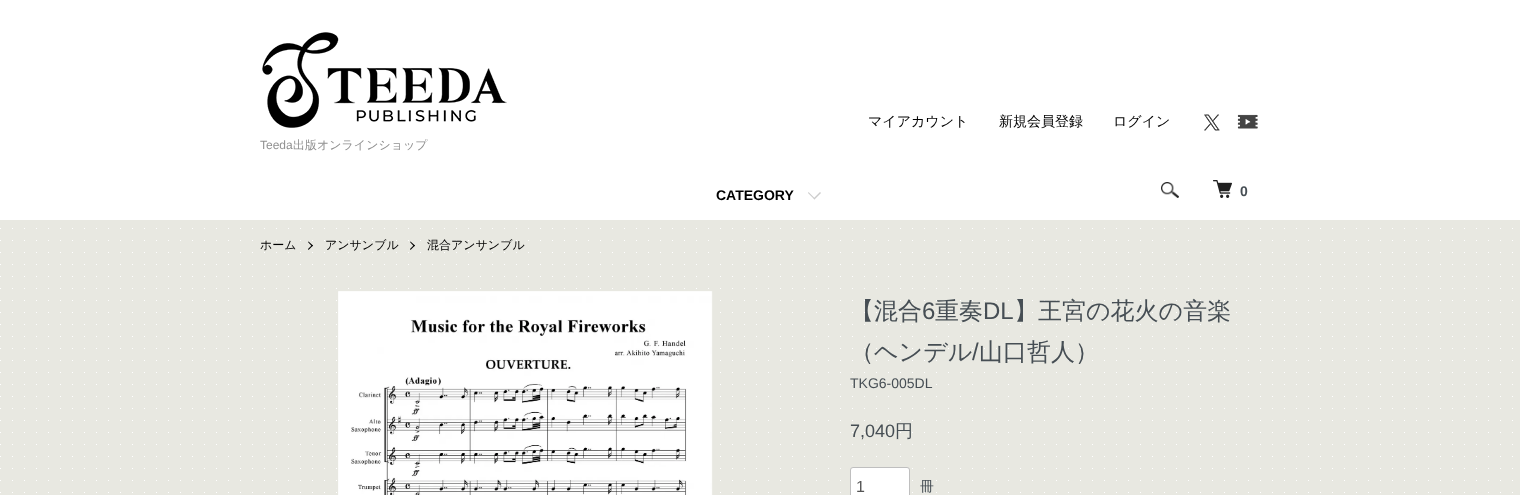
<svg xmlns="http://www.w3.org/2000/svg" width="1520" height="495">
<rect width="100%" height="100%" fill="#e8e8e1"/>
<image x="0" y="228" width="1513" height="265" href="media/1.png"/>
<rect width="1520" height="220" fill="#fff"/>
<text x="868" y="126" style="font-family:WenQuanYi Zen Hei;font-size:14px;font-weight:500;fill:#000">マイアカウント</text>
<text x="999" y="126" style="font-family:WenQuanYi Zen Hei;font-size:14px;font-weight:500;fill:#000">新規会員登録</text>
<text x="1113" y="126" style="font-family:WenQuanYi Zen Hei;font-size:14px;font-weight:500;fill:#000">ログイン</text>
<image x="1204" y="114" width="16" height="17" href="media/2.png"/>
<image x="1237" y="114" width="21" height="15" href="media/3.png"/>
<text x="716" y="200" style="font-family:Liberation Sans;font-size:14px;font-weight:bold;fill:#000">CATEGORY</text>
<path d="M820 192l1 1l-6.5 6.5l-1-1z" fill="#ccc"/>
<path d="M808.5 192l6.5 6.5l-.5 1l-6.5-6.5z" fill="#ccc"/>
<image x="262" y="32" width="245" height="96" href="media/4.png"/>
<text x="260" y="149" style="font-family:Liberation Sans;font-size:12px;fill:#909090">Teeda</text>
<text x="293" y="149" style="font-family:WenQuanYi Zen Hei;font-size:12px;font-weight:500;fill:#909090">出版オンラインショップ</text>
<image x="1161" y="182" width="18" height="16" href="media/5.png"/>
<image x="1213" y="180" width="19" height="18" href="media/6.png"/>
<text x="1240" y="196" style="font-family:Liberation Sans;font-size:14px;font-weight:bold;fill:#464e54">0</text>
<text x="260" y="249" style="font-family:WenQuanYi Zen Hei;font-size:12px;font-weight:500;fill:#000">ホーム</text>
<path d="M308 242l.5-.5l4.5 4l-1 1z" fill="#000"/>
<path d="M308 249l4-4l1 .5l-4.5 4.5z" fill="#000"/>
<text x="325" y="249" style="font-family:WenQuanYi Zen Hei;font-size:12px;font-weight:500;fill:#000">アンサンブル</text>
<path d="M410 242l.5-.5l4.5 4l-1 1z" fill="#000"/>
<path d="M410 249l4-4l1 .5l-4.5 4.5z" fill="#000"/>
<text x="427" y="249" style="font-family:WenQuanYi Zen Hei;font-size:12px;font-weight:500;fill:#000">混合アンサンブル</text>
<image x="338" y="291" width="375" height="204" href="media/7.png"/>
<text x="850" y="319" style="font-family:WenQuanYi Zen Hei;font-size:24px;font-weight:500;fill:#464e54">【混合</text>
<text x="922" y="319" style="font-family:Liberation Sans;font-size:24px;fill:#464e54">6</text>
<text x="935" y="319" style="font-family:WenQuanYi Zen Hei;font-size:24px;font-weight:500;fill:#464e54">重奏</text>
<text x="983" y="319" style="font-family:Liberation Sans;font-size:24px;fill:#464e54">DL</text>
<text x="1014" y="319" style="font-family:WenQuanYi Zen Hei;font-size:24px;font-weight:500;fill:#464e54">】王宮の花火の音楽</text>
<text x="850" y="360" style="font-family:WenQuanYi Zen Hei;font-size:24px;font-weight:500;fill:#464e54">（ヘンデル</text>
<text x="972" y="360" style="font-family:Liberation Sans;font-size:24px;fill:#464e54">/</text>
<text x="979" y="360" style="font-family:WenQuanYi Zen Hei;font-size:24px;font-weight:500;fill:#464e54">山口哲人）</text>
<text x="850" y="388" style="font-family:Liberation Sans;font-size:14px;fill:#464e54">TKG6-005DL</text>
<text x="850" y="437" style="font-family:Liberation Sans;font-size:18px;fill:#464e54">7,040</text>
<text x="895" y="437" style="font-family:WenQuanYi Zen Hei;font-size:18px;font-weight:500;fill:#464e54">円</text>
<rect x="850.5" y="467.5" width="59" height="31" rx="2.5" fill="#fff" stroke="#bfbfbf"/>
<text x="856" y="492" style="font-family:Liberation Sans;font-size:16px;fill:#555">1</text>
<text x="920" y="491" style="font-family:WenQuanYi Zen Hei;font-size:14px;font-weight:500;fill:#464e54">冊</text>
</svg>
